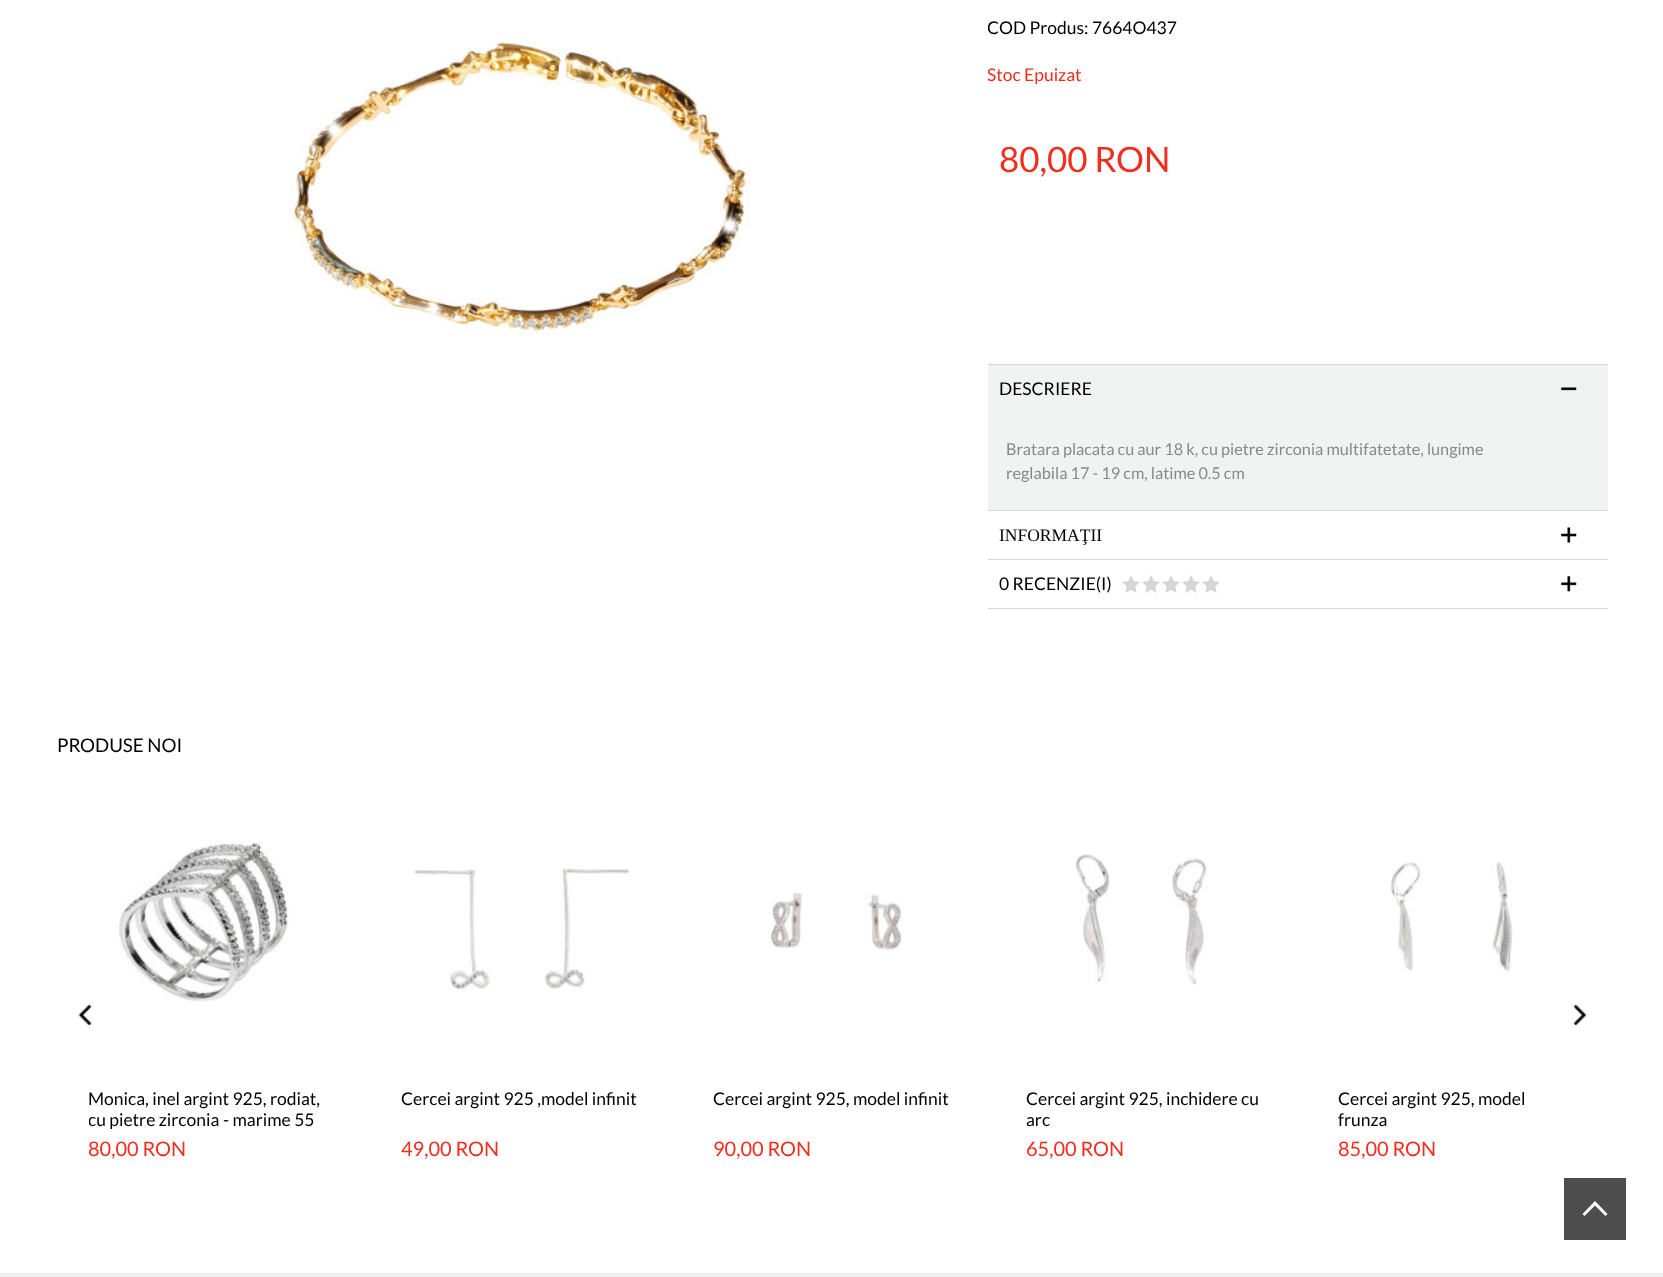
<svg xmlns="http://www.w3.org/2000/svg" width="1663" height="1277">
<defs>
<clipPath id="clip1"><rect x="89" y="1088" width="237" height="42"/></clipPath>
</defs>
<rect width="100%" height="100%" fill="#fff"/>
<text x="987" y="34" style="font-family:Lato;font-size:17.5px;fill:#000">COD Produs: 7664O437</text>
<text x="987" y="81" style="font-family:Lato;font-size:17.5px;fill:#f32d1e">Stoc Epuizat</text>
<rect x="987" y="25" width="1" height="55" fill="#fff"/>
<image x="290" y="38" width="460" height="300" href="media/1.png"/>
<text x="999" y="172" style="font-family:Lato;font-size:35px;fill:#f32d1e">80,00 RON</text>
<rect x="988" y="364" width="620" height="1" fill="#d6d7d9"/>
<rect x="988" y="365" width="620" height="145" fill="#f1f2f2"/>
<image x="1561" y="387" width="16" height="4" href="media/2.png"/>
<text x="999" y="395" style="font-family:Lato;font-size:17.5px;fill:#000">DESCRIERE</text>
<rect x="988" y="510" width="620" height="1" fill="#d6d7d9"/>
<text x="1006" y="455" style="font-family:Lato;font-size:16.25px;fill:#898989">Bratara placata cu aur 18 k, cu pietre zirconia multifatetate, lungime</text>
<text x="1006" y="479" style="font-family:Lato;font-size:16.25px;fill:#898989">reglabila 17 - 19 cm, latime 0.5 cm</text>
<image x="1561" y="527" width="16" height="16" href="media/3.png"/>
<rect x="988" y="559" width="620" height="1" fill="#d6d7d9"/>
<text x="999" y="541" style="font-family:Liberation Serif;font-size:17.5px;fill:#000">INFORMAŢII</text>
<image x="1561" y="576" width="16" height="16" href="media/4.png"/>
<rect x="988" y="608" width="620" height="1" fill="#d6d7d9"/>
<text x="999" y="590" style="font-family:Lato;font-size:17.5px;fill:#000">0 RECENZIE(I)</text>
<image x="1122" y="575" width="98" height="18" href="media/5.png"/>
<text x="57" y="752" style="font-family:Lato;font-size:18.75px;fill:#000">PRODUSE NOI</text>
<image x="78" y="1004" width="14" height="22" href="media/6.png"/>
<image x="1573" y="1004" width="14" height="22" href="media/7.png"/>
<image x="119" y="841" width="170" height="161" href="media/8.png"/>
<text x="88" y="1105" style="font-family:Lato;font-size:17.5px;fill:#000">Monica, inel argint 925, rodiat,</text>
<g clip-path="url(#clip1)">
<text x="88" y="1126" style="font-family:Lato;font-size:17.5px;fill:#000">cu pietre zirconia</text>
</g>
<text x="223" y="1126" style="font-family:Lato;font-size:17.5px;fill:#000">- marime 55</text>
<text x="88" y="1156" style="font-family:Lato;font-size:20px;fill:#f32d1e">80,00 RON</text>
<image x="414" y="868" width="215" height="122" href="media/9.png"/>
<text x="401" y="1105" style="font-family:Lato;font-size:17.5px;fill:#000">Cercei argint 925 ,model infinit</text>
<text x="401" y="1156" style="font-family:Lato;font-size:20px;fill:#f32d1e">49,00 RON</text>
<image x="768" y="892" width="134" height="59" href="media/10.png"/>
<text x="713" y="1105" style="font-family:Lato;font-size:17.5px;fill:#000">Cercei argint 925, model infinit</text>
<text x="713" y="1156" style="font-family:Lato;font-size:20px;fill:#f32d1e">90,00 RON</text>
<image x="1075" y="854" width="133" height="131" href="media/11.png"/>
<text x="1026" y="1105" style="font-family:Lato;font-size:17.5px;fill:#000">Cercei argint 925, inchidere cu</text>
<text x="1026" y="1126" style="font-family:Lato;font-size:17.5px;fill:#000">arc</text>
<text x="1026" y="1156" style="font-family:Lato;font-size:20px;fill:#f32d1e">65,00 RON</text>
<image x="1391" y="861" width="122" height="110" href="media/12.png"/>
<text x="1338" y="1105" style="font-family:Lato;font-size:17.5px;fill:#000">Cercei argint 925, model</text>
<text x="1338" y="1126" style="font-family:Lato;font-size:17.5px;fill:#000">frunza</text>
<text x="1338" y="1156" style="font-family:Lato;font-size:20px;fill:#f32d1e">85,00 RON</text>
<rect x="1564" y="1178" width="62" height="62" fill="#4d4d4d"/>
<path d="M1582.5 1214l2 2l10.5-10.5l10.5 10.5l2-2l-12.5-13z" fill="#fff"/>
<rect y="1274" width="1663" height="3" fill="#f1f2f2"/>
<rect y="1273" width="1663" height="1" fill="#ededed"/>
</svg>
